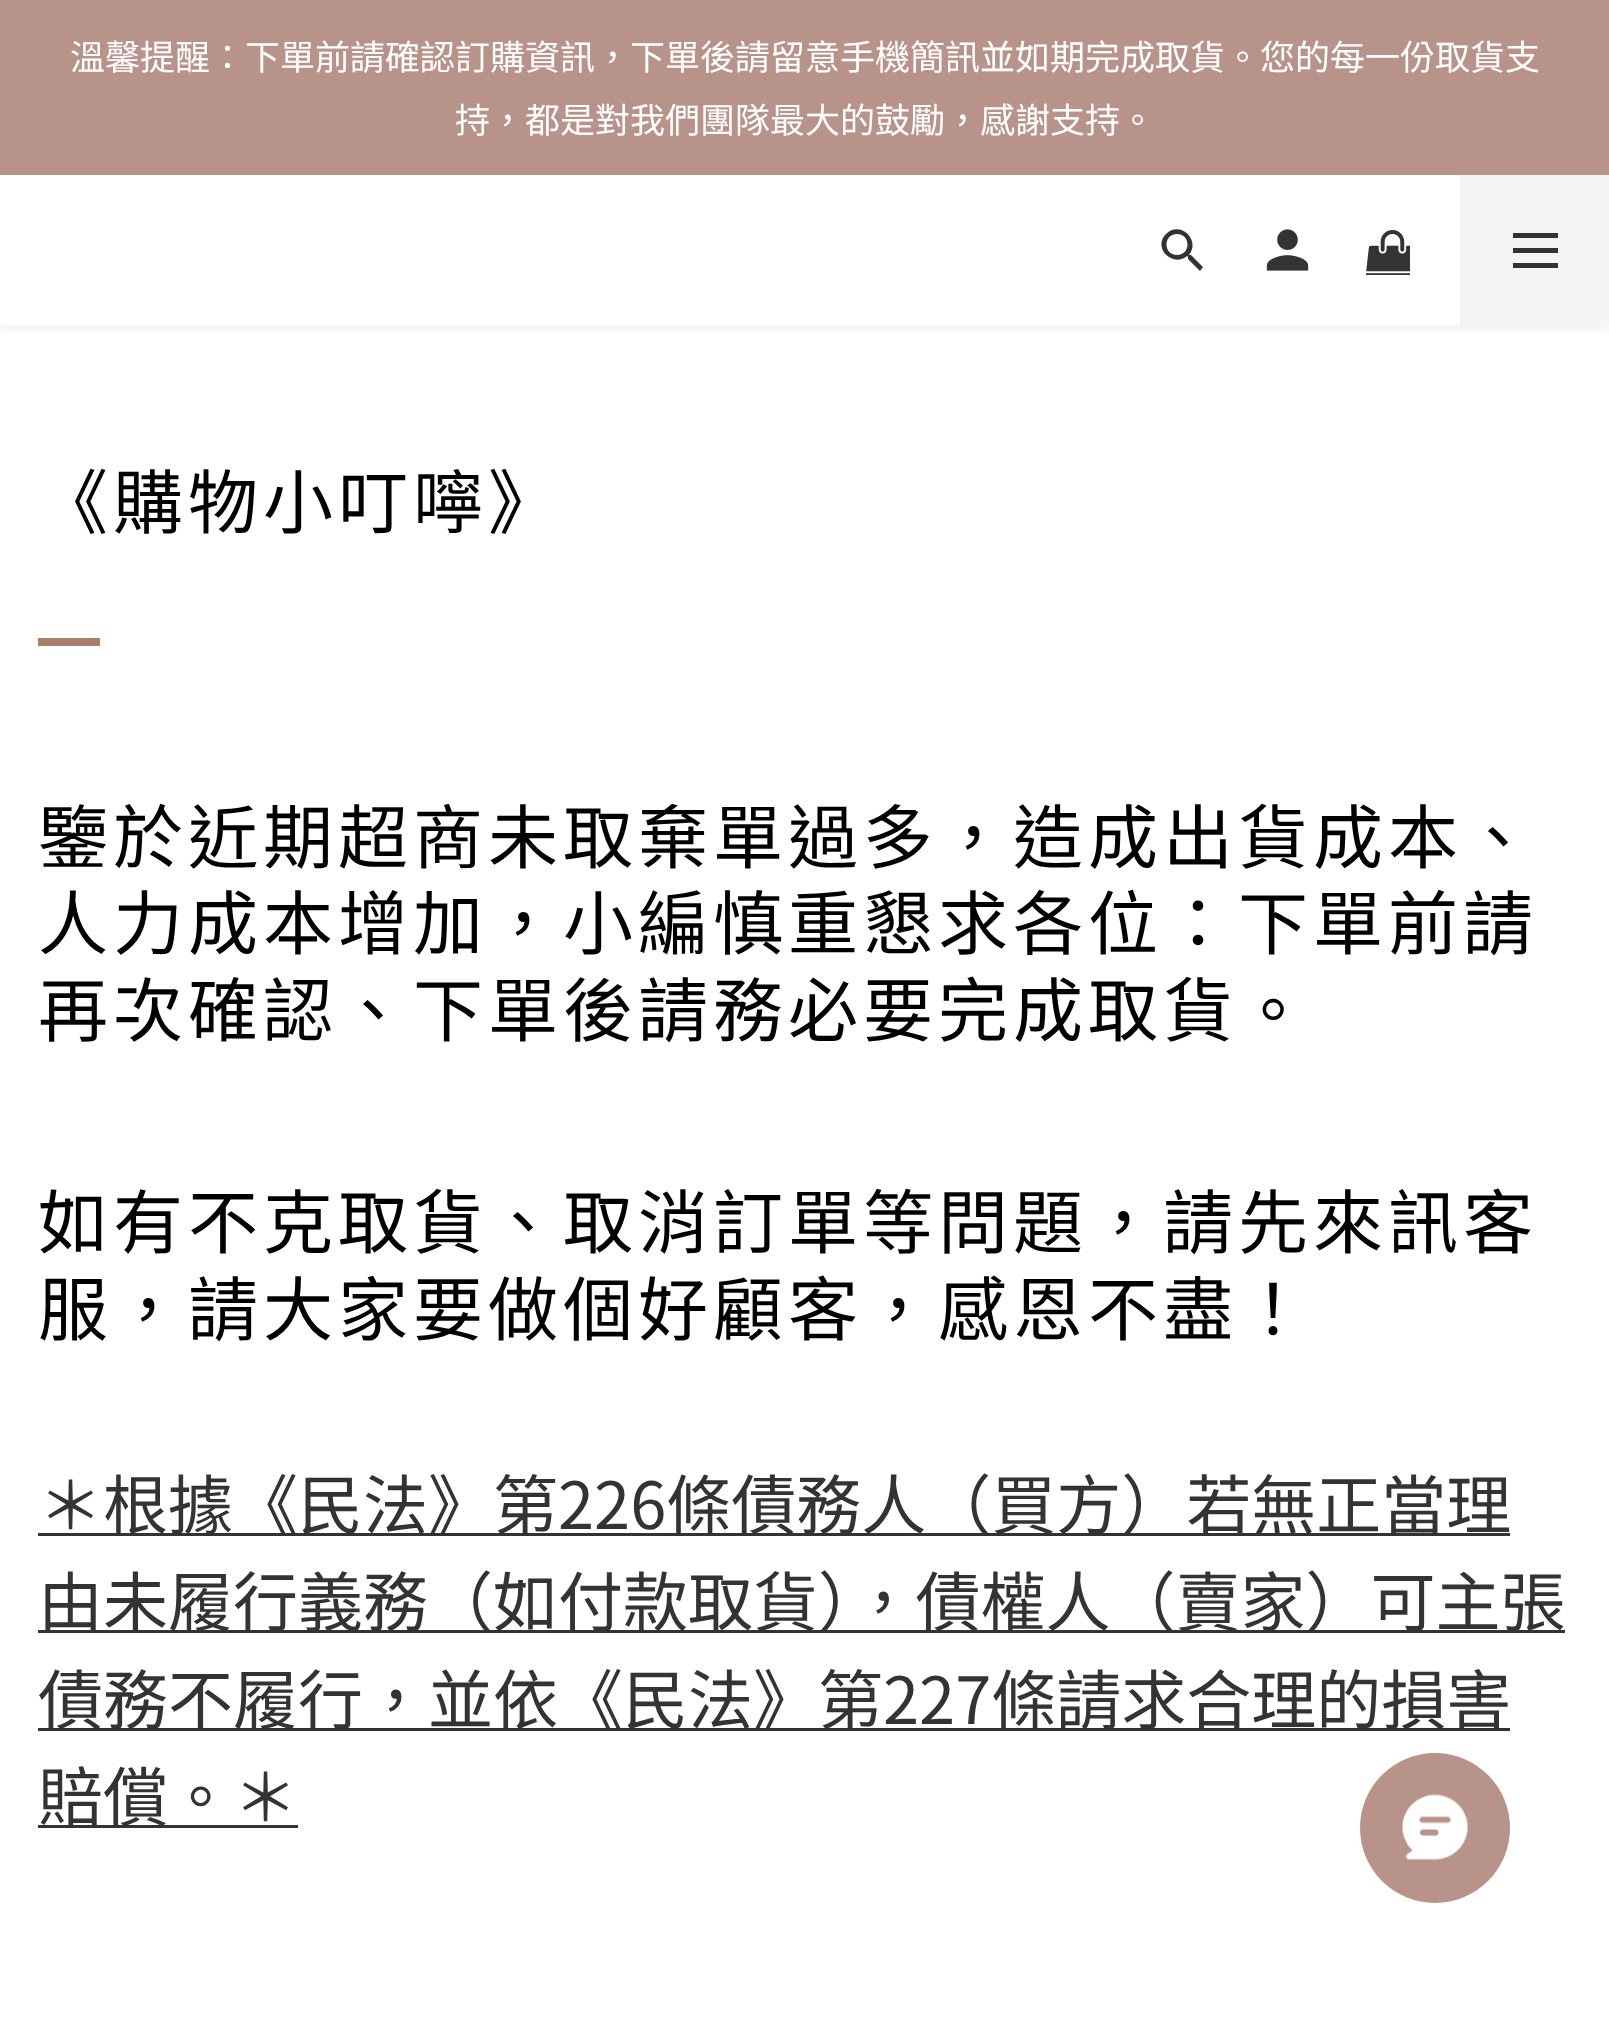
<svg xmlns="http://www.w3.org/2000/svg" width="1609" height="2042">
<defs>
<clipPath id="clip1"><rect x="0" y="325" width="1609" height="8"/></clipPath>
</defs>
<rect width="100%" height="100%" fill="#fff"/>
<rect width="1609" height="175" fill="#b8938a"/>
<text x="70" y="70" style="font-family:Noto Sans TC;font-size:35px;fill:#fff">溫馨提醒：下單前請確認訂購資訊，下單後請留意手機簡訊並如期完成取貨。您的每一份取貨支</text>
<text x="455" y="133" style="font-family:Noto Sans TC;font-size:35px;fill:#fff">持，都是對我們團隊最大的鼓勵，感謝支持。</text>
<g clip-path="url(#clip1)">
<rect y="180" width="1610" height="150" fill="#0000000f" filter="blur(7.5px)"/>
</g>
<path d="M1191 255h-2c12-15-9-35-23-21c-14 14 7 34 21 22l1 1v2l12 12l3-4zm-14 0c-14 0-14-21 0-21c14 0 14 21 0 21z" fill="#333"/>
<image x="1266" y="229" width="43" height="42" href="media/1.png"/>
<image x="1365" y="230" width="45" height="45" href="media/2.png"/>
<rect x="1460" y="175" width="149" height="150" fill="#f5f5f5"/>
<rect x="1513" y="248" width="45" height="5" fill="#333"/>
<rect x="1513" y="233" width="45" height="5" fill="#333"/>
<rect x="1513" y="263" width="45" height="5" fill="#333"/>
<text x="38" y="528" style="font-family:Noto Sans TC;font-size:70px;letter-spacing:5px;fill:#000">《購物小叮嚀》</text>
<rect x="38" y="638" width="62" height="8" fill="#ab7d6b"/>
<text x="38" y="863" style="font-family:Noto Sans TC;font-size:70px;letter-spacing:5px;fill:#000">鑒於近期超商未取棄單過多，造成出貨成本、</text>
<text x="38" y="949" style="font-family:Noto Sans TC;font-size:70px;letter-spacing:5px;fill:#000">人力成本增加，小編慎重懇求各位：下單前請</text>
<text x="38" y="1036" style="font-family:Noto Sans TC;font-size:70px;letter-spacing:5px;fill:#000">再次確認、下單後請務必要完成取貨。</text>
<text x="38" y="1248" style="font-family:Noto Sans TC;font-size:70px;letter-spacing:5px;fill:#000">如有不克取貨、取消訂單等問題，請先來訊客</text>
<text x="38" y="1335" style="font-family:Noto Sans TC;font-size:70px;letter-spacing:5px;fill:#000">服，請大家要做個好顧客，感恩不盡！</text>
<rect x="38" y="1533" width="1472" height="3" fill="#333"/>
<text x="38" y="1529" style="font-family:Noto Sans TC;font-size:65px;fill:#333">＊根據《民法》第226條債務人（買方）若無正當理</text>
<rect x="38" y="1630" width="1527" height="3" fill="#333"/>
<text x="38" y="1626" style="font-family:Noto Sans TC;font-size:65px;fill:#333">由未履行義務（如付款取貨），債權人（賣家）可主張</text>
<rect x="38" y="1728" width="1472" height="3" fill="#333"/>
<text x="38" y="1724" style="font-family:Noto Sans TC;font-size:65px;fill:#333">債務不履行，並依《民法》第227條請求合理的損害</text>
<rect x="38" y="1825" width="260" height="3" fill="#333"/>
<text x="38" y="1821" style="font-family:Noto Sans TC;font-size:65px;fill:#333">賠償。＊</text>
<circle cx="1435" cy="1828" r="75" fill="#b8938a"/>
<image x="1402" y="1794" width="66" height="66" href="media/3.png"/>
</svg>
